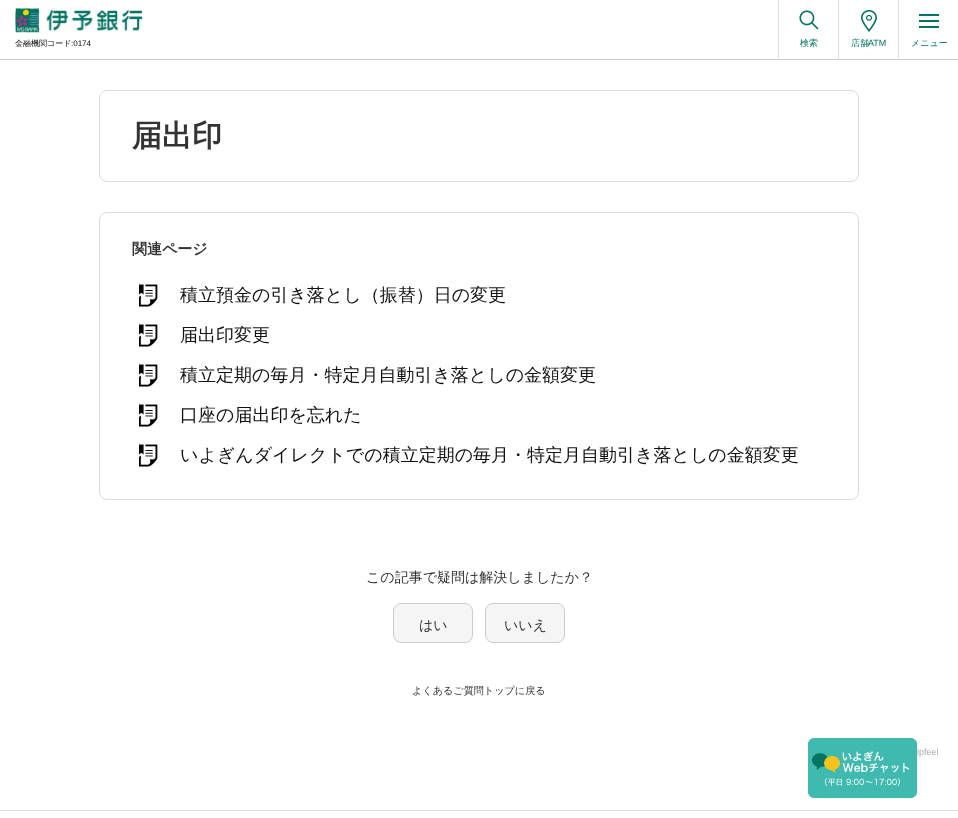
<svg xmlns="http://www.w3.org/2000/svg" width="958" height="818">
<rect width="100%" height="100%" fill="#fff"/>
<rect y="59" width="958" height="1" fill="#ccc"/>
<image x="15" y="8" width="128" height="25" href="media/1.png"/>
<text x="15" y="46" style="font-family:WenQuanYi Zen Hei;font-size:8px;font-weight:500;fill:#000">金融機関コード</text>
<text x="71" y="46" style="font-family:Liberation Sans;font-size:8px;fill:#000">:0174</text>
<rect x="778" width="1" height="60" fill="#ddd"/>
<image x="799" y="10" width="20" height="20" href="media/2.png"/>
<text x="800" y="46" style="font-family:WenQuanYi Zen Hei;font-size:9px;font-weight:500;fill:#037461">検索</text>
<rect x="838" width="1" height="60" fill="#ddd"/>
<image x="861" y="10" width="16" height="22" href="media/3.png"/>
<text x="851" y="46" style="font-family:WenQuanYi Zen Hei;font-size:9px;font-weight:500;fill:#037461">店舗</text>
<text x="868" y="46" style="font-family:Liberation Sans;font-size:9px;fill:#037461">ATM</text>
<rect x="898" width="1" height="60" fill="#ddd"/>
<rect x="919" y="14" width="20" height="2" fill="#037461"/>
<rect x="919" y="20" width="20" height="2" fill="#037461"/>
<rect x="919" y="26" width="20" height="2" fill="#037461"/>
<text x="911" y="46" style="font-family:WenQuanYi Zen Hei;font-size:9px;font-weight:500;fill:#037461">メニュー</text>
<rect x="99.5" y="90.5" width="759" height="91" rx="7.5" fill="none" stroke="#dcdcdc"/>
<text x="132" y="146" style="font-family:WenQuanYi Zen Hei;font-size:30px;font-weight:bold;fill:#333">届出印</text>
<rect x="99.5" y="212.5" width="759" height="287" rx="7.5" fill="none" stroke="#dcdcdc"/>
<text x="132" y="254" style="font-family:WenQuanYi Zen Hei;font-size:15px;font-weight:bold;fill:#333">関連ページ</text>
<image x="139" y="284" width="19" height="23" href="media/4.png"/>
<text x="180" y="301" style="font-family:WenQuanYi Zen Hei;font-size:18px;font-weight:500;fill:#111">積立預金の引き落とし（振替）日の変更</text>
<image x="139" y="324" width="19" height="23" href="media/4.png"/>
<text x="180" y="341" style="font-family:WenQuanYi Zen Hei;font-size:18px;font-weight:500;fill:#111">届出印変更</text>
<image x="139" y="364" width="19" height="23" href="media/4.png"/>
<text x="180" y="381" style="font-family:WenQuanYi Zen Hei;font-size:18px;font-weight:500;fill:#111">積立定期の毎月・特定月自動引き落としの金額変更</text>
<image x="139" y="404" width="19" height="23" href="media/4.png"/>
<text x="180" y="421" style="font-family:WenQuanYi Zen Hei;font-size:18px;font-weight:500;fill:#111">口座の届出印を忘れた</text>
<image x="139" y="444" width="19" height="23" href="media/4.png"/>
<text x="180" y="461" style="font-family:WenQuanYi Zen Hei;font-size:18px;font-weight:500;fill:#111">いよぎんダイレクトでの積立定期の毎月・特定月自動引き落としの金額変更</text>
<text x="366" y="582" style="font-family:WenQuanYi Zen Hei;font-size:14px;font-weight:500;fill:#333">この記事で疑問は解決しましたか？</text>
<rect x="393.5" y="603.5" width="79" height="39" rx="7.5" fill="#f5f5f5" stroke="#ccc"/>
<text x="419" y="630" style="font-family:WenQuanYi Zen Hei;font-size:14px;font-weight:500;fill:#333">はい</text>
<rect x="485.5" y="603.5" width="79" height="39" rx="7.5" fill="#f5f5f5" stroke="#ccc"/>
<text x="504" y="630" style="font-family:WenQuanYi Zen Hei;font-size:14px;font-weight:500;fill:#333">いいえ</text>
<text x="412" y="694" style="font-family:WenQuanYi Zen Hei;font-size:10.1px;font-weight:500;fill:#333">よくあるご質問トップに戻る</text>
<image x="808" y="738" width="109" height="60" href="media/5.png"/>
<text x="917" y="755" style="font-family:Liberation Sans;font-size:9px;fill:#aaa">lpfeel</text>
<rect y="810" width="958" height="1" fill="#ddd"/>
</svg>
